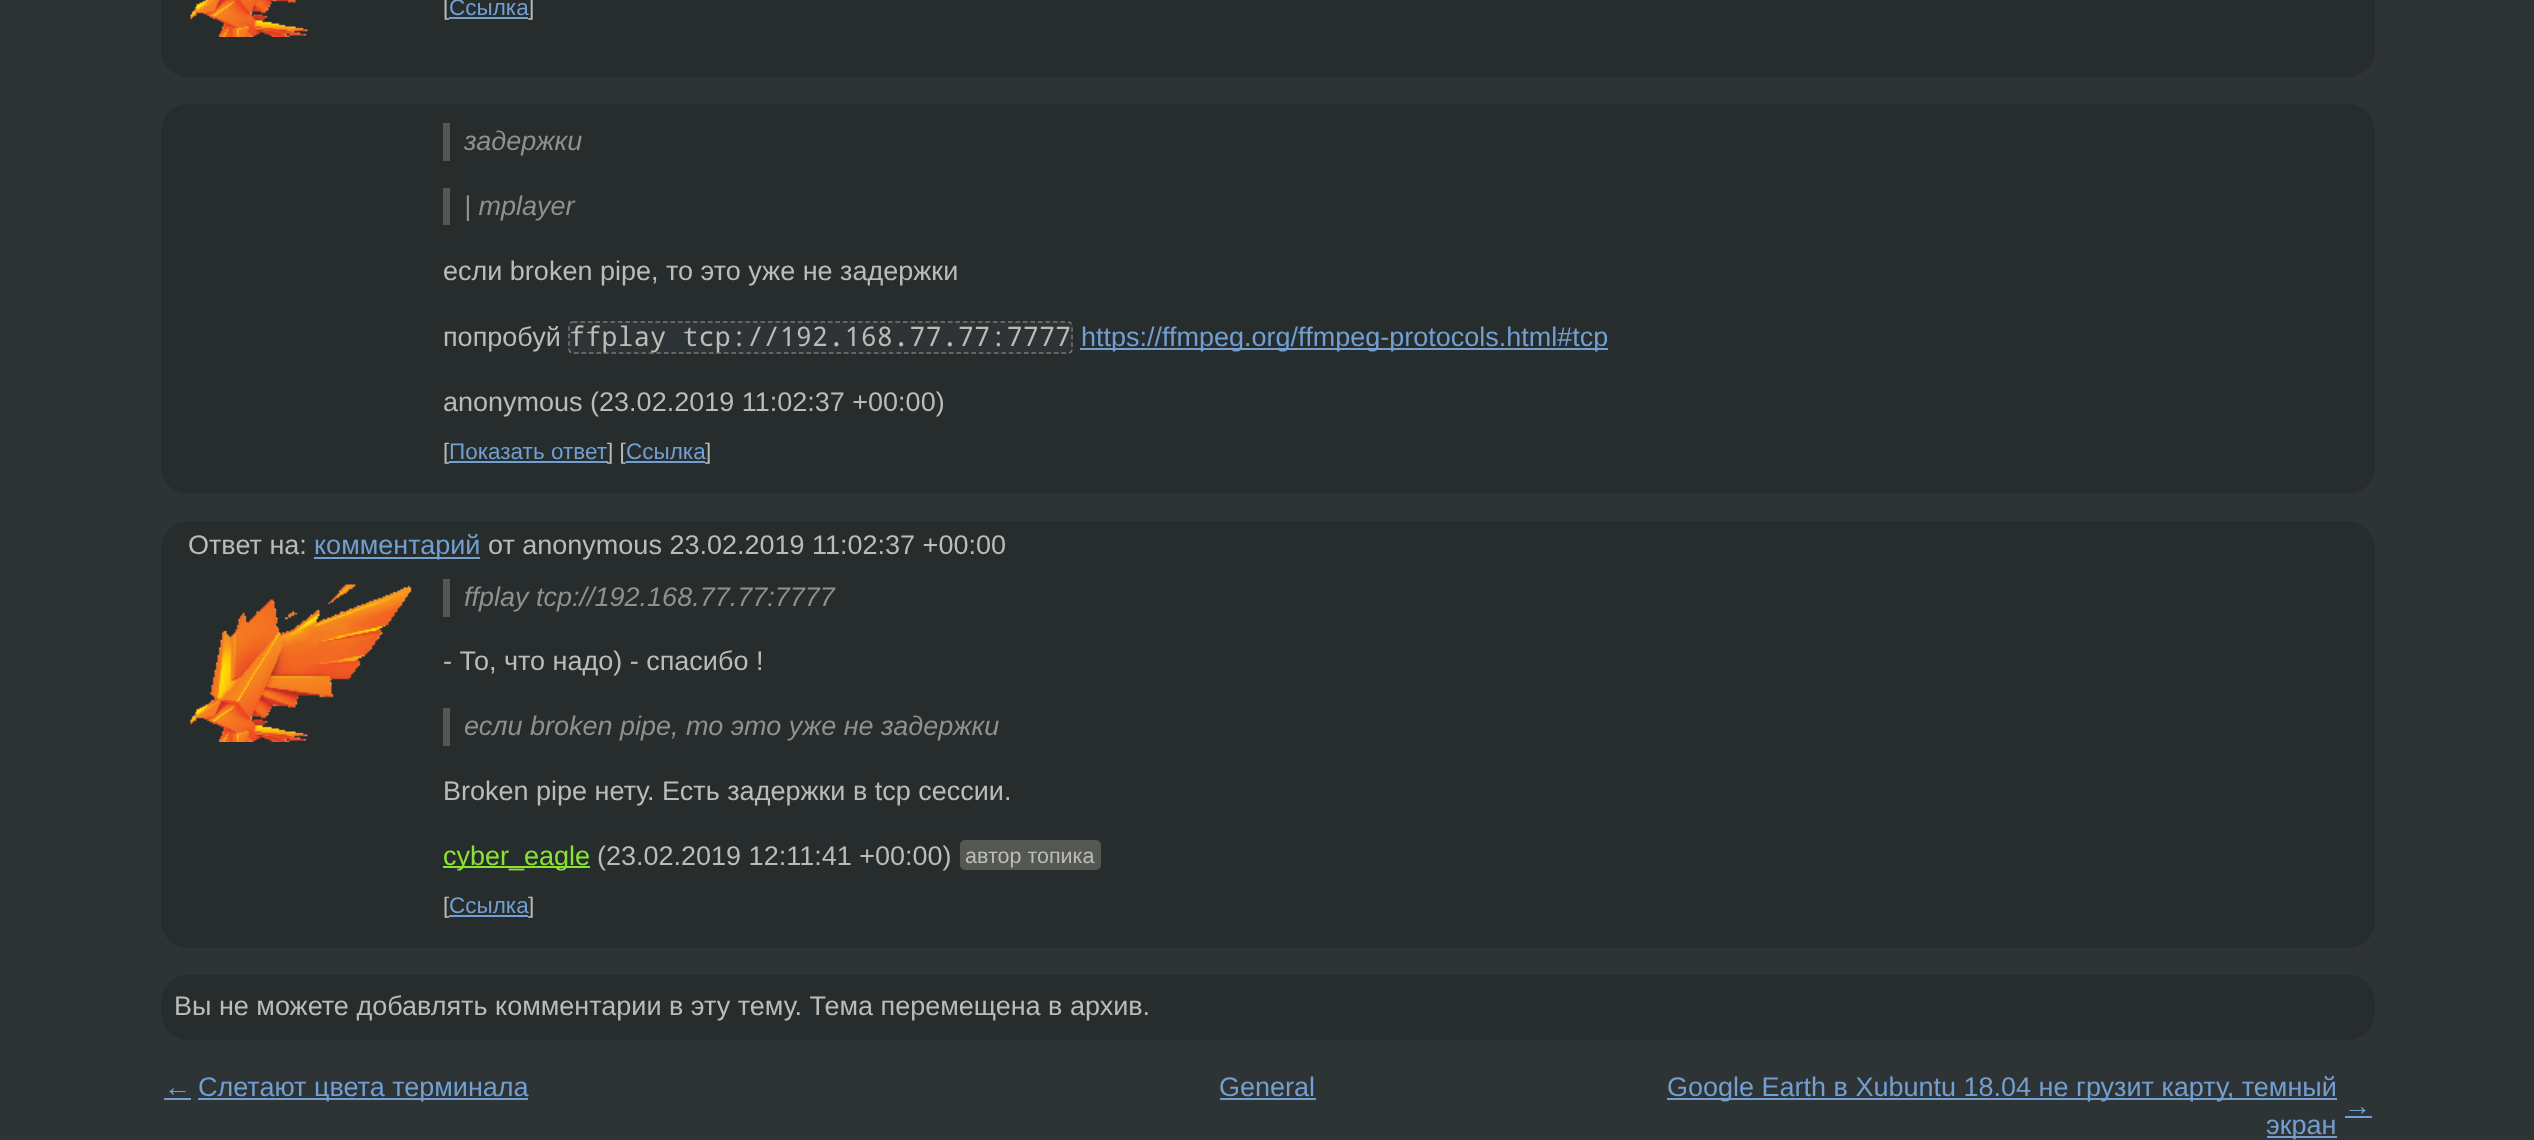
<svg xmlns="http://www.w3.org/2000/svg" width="2534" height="1140">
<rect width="100%" height="100%" fill="#2e3436"/>
<rect x="161" y="-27" width="2214" height="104" rx="27" fill="#272c2d"/>
<image x="190" y="0" width="118" height="37" href="media/1.png"/>
<text x="443" y="15" style="font-family:Liberation Sans;font-size:22.5px;fill:#babdb6">[</text>
<rect x="449" y="17" width="79" height="2" fill="#729fcf"/>
<text x="449" y="15" style="font-family:Liberation Sans;font-size:22.5px;fill:#729fcf">Ссылка</text>
<text x="528" y="15" style="font-family:Liberation Sans;font-size:22.5px;fill:#babdb6">]</text>
<rect x="161" y="104" width="2214" height="390" rx="27" fill="#272c2d"/>
<rect x="443" y="123" width="7" height="38" fill="#555753"/>
<text x="464" y="150" style="font-family:Liberation Sans;font-size:27px;font-style:italic;fill:#909090">задержки</text>
<rect x="443" y="188" width="7" height="37" fill="#555753"/>
<text x="464" y="215" style="font-family:Liberation Sans;font-size:27px;font-style:italic;fill:#909090">| mplayer</text>
<text x="443" y="280" style="font-family:Liberation Sans;font-size:27px;fill:#babdb6">если broken pipe, то это уже не задержки</text>
<text x="443" y="346" style="font-family:Liberation Sans;font-size:27px;fill:#babdb6">попробуй</text>
<rect x="569" y="321" width="504" height="33" rx="5" fill="#2e3436"/>
<path d="M573 322h495c2 0 4 1.5 4 3.5v24c0 2-2 3.5-4 3.5h-495c-2 0-4-1.5-4-3.5v-24c0-2 2-3.5 4-3.5z" fill="none" stroke="#777" stroke-width="1.5" stroke-dasharray="4.5 3"/>
<text x="569" y="346" style="font-family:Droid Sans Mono;font-size:27px;fill:#babdb6">ffplay tcp://192.168.77.77:7777</text>
<rect x="1080" y="348" width="528" height="2" fill="#729fcf"/>
<text x="1081" y="346" style="font-family:Liberation Sans;font-size:27px;fill:#729fcf">https://ffmpeg.org/ffmpeg-protocols.html#tcp</text>
<text x="443" y="411" style="font-family:Liberation Sans;font-size:27px;fill:#babdb6">anonymous (23.02.2019 11:02:37 +00:00)</text>
<text x="443" y="459" style="font-family:Liberation Sans;font-size:22.5px;fill:#babdb6">[</text>
<rect x="449" y="461" width="159" height="2" fill="#729fcf"/>
<text x="449" y="459" style="font-family:Liberation Sans;font-size:22.5px;fill:#729fcf">Показать ответ</text>
<text x="607" y="459" style="font-family:Liberation Sans;font-size:22.5px;fill:#babdb6">] [</text>
<rect x="626" y="461" width="79" height="2" fill="#729fcf"/>
<text x="626" y="459" style="font-family:Liberation Sans;font-size:22.5px;fill:#729fcf">Ссылка</text>
<text x="705" y="459" style="font-family:Liberation Sans;font-size:22.5px;fill:#babdb6">]</text>
<rect x="161" y="521" width="2214" height="427" rx="27" fill="#272c2d"/>
<text x="188" y="554" style="font-family:Liberation Sans;font-size:27px;fill:#babdb6">Ответ на:</text>
<rect x="314" y="557" width="166" height="2" fill="#729fcf"/>
<text x="314" y="554" style="font-family:Liberation Sans;font-size:27px;fill:#729fcf">комментарий</text>
<text x="488" y="554" style="font-family:Liberation Sans;font-size:27px;fill:#babdb6">от anonymous 23.02.2019 11:02:37 +00:00</text>
<image x="190" y="584" width="222" height="158" href="media/2.png"/>
<rect x="443" y="579" width="7" height="38" fill="#555753"/>
<text x="464" y="606" style="font-family:Liberation Sans;font-size:27px;font-style:italic;fill:#909090">ffplay tcp://192.168.77.77:7777</text>
<text x="443" y="670" style="font-family:Liberation Sans;font-size:27px;fill:#babdb6">- То, что надо) - спасибо !</text>
<rect x="443" y="708" width="7" height="38" fill="#555753"/>
<text x="464" y="735" style="font-family:Liberation Sans;font-size:27px;font-style:italic;fill:#909090">если broken pipe, то это уже не задержки</text>
<text x="443" y="800" style="font-family:Liberation Sans;font-size:27px;fill:#babdb6">Broken pipe нету. Есть задержки в tcp сессии.</text>
<rect x="443" y="866" width="147" height="2" fill="#8ae234"/>
<text x="443" y="865" style="font-family:Liberation Sans;font-size:27px;fill:#8ae234">cyber_eagle</text>
<text x="597" y="865" style="font-family:Liberation Sans;font-size:27px;fill:#babdb6">(23.02.2019 12:11:41 +00:00)</text>
<rect x="960" y="840" width="141" height="30" rx="5" fill="#555753"/>
<text x="965" y="863" style="font-family:Liberation Sans;font-size:21.5px;fill:#babdb6">автор топика</text>
<text x="443" y="913" style="font-family:Liberation Sans;font-size:22.5px;fill:#babdb6">[</text>
<rect x="449" y="915" width="79" height="2" fill="#729fcf"/>
<text x="449" y="913" style="font-family:Liberation Sans;font-size:22.5px;fill:#729fcf">Ссылка</text>
<text x="528" y="913" style="font-family:Liberation Sans;font-size:22.5px;fill:#babdb6">]</text>
<rect x="161" y="975" width="2214" height="65" rx="27" fill="#272c2d"/>
<text x="174" y="1015" style="font-family:Liberation Sans;font-size:27px;fill:#babdb6">Вы не можете добавлять комментарии в эту тему. Тема перемещена в архив.</text>
<text x="164" y="1096" style="font-family:Liberation Sans;font-size:27px;fill:#729fcf">←</text>
<rect x="164" y="1098" width="27" height="2" fill="#729fcf"/>
<rect x="198" y="1098" width="330" height="2" fill="#729fcf"/>
<text x="198" y="1096" style="font-family:Liberation Sans;font-size:27px;fill:#729fcf">Слетают цвета терминала</text>
<text x="1219" y="1096" style="font-family:Liberation Sans;font-size:27px;fill:#729fcf">General</text>
<rect x="1220" y="1098" width="96" height="2" fill="#729fcf"/>
<rect x="1667" y="1098" width="670" height="2" fill="#729fcf"/>
<text x="1667" y="1096" style="font-family:Liberation Sans;font-size:27px;fill:#729fcf">Google Earth в Xubuntu 18.04 не грузит карту, темный</text>
<rect x="2267" y="1136" width="70" height="2" fill="#729fcf"/>
<text x="2266" y="1134" style="font-family:Liberation Sans;font-size:27px;fill:#729fcf">экран</text>
<text x="2344" y="1115" style="font-family:Liberation Sans;font-size:27px;fill:#729fcf">→</text>
<rect x="2345" y="1116" width="27" height="2" fill="#729fcf"/>
</svg>
